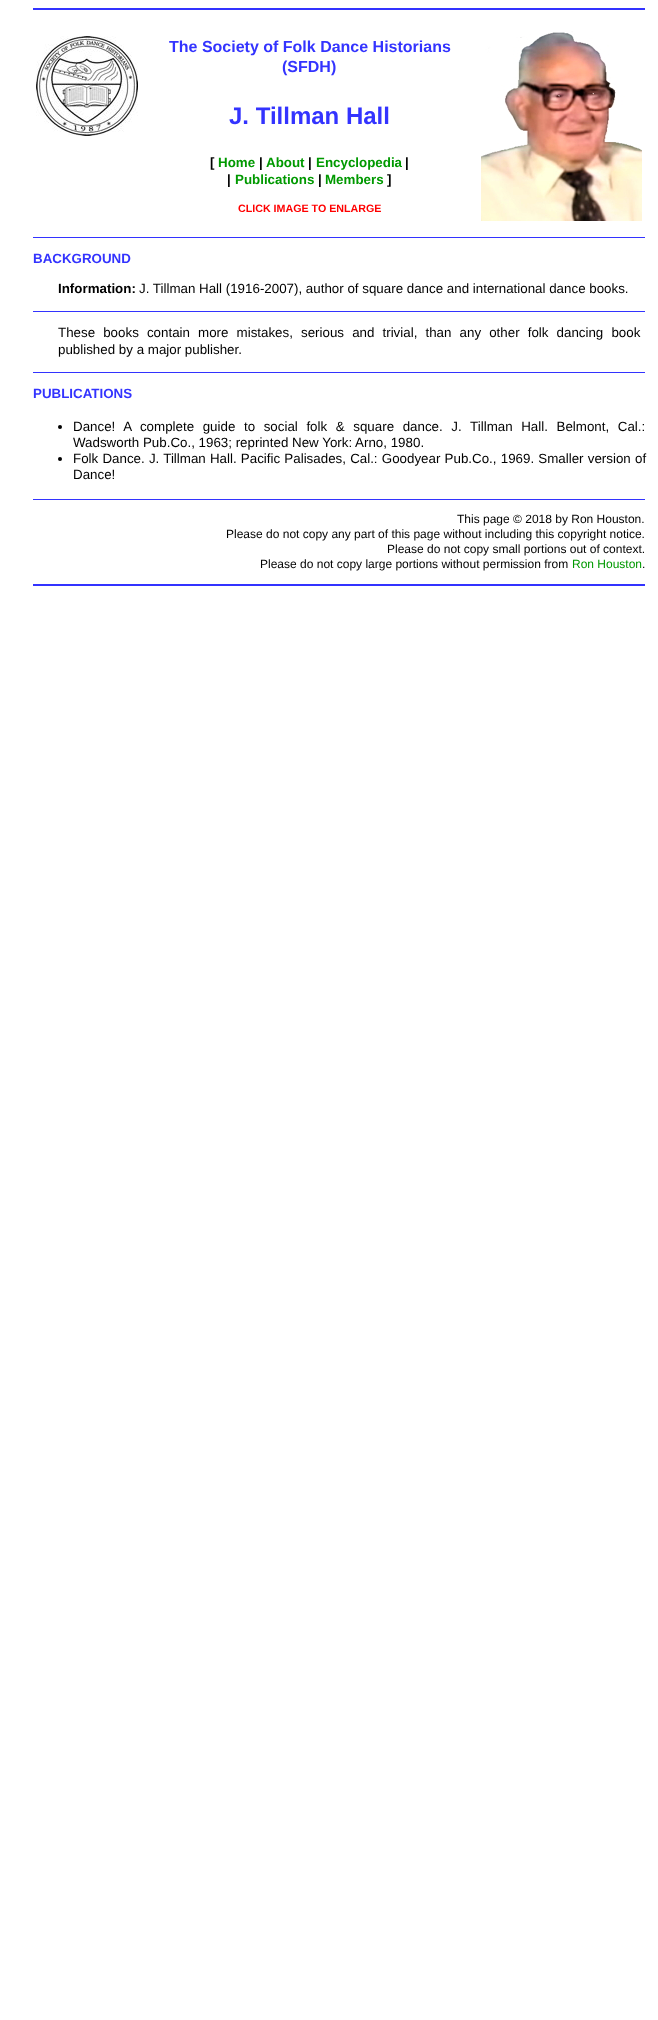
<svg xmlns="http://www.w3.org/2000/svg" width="658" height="2020">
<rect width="100%" height="100%" fill="#fff"/>
<rect x="33" y="8" width="612" height="2" fill="#33f"/>
<image x="36" y="36" width="102" height="100" href="media/1.png"/>
<text x="169" y="52" style="font-family:Liberation Sans;font-size:16px;font-weight:bold;fill:#33f">The Society of Folk Dance Historians</text>
<text x="282" y="72" style="font-family:Liberation Sans;font-size:16px;font-weight:bold;fill:#33f">(SFDH)</text>
<text x="229" y="124" style="font-family:Liberation Sans;font-size:24px;font-weight:bold;fill:#33f">J. Tillman Hall</text>
<text x="210" y="167" style="font-family:Liberation Sans;font-size:13.35px;font-weight:bold;fill:#000">[</text>
<text x="218" y="167" style="font-family:Liberation Sans;font-size:13.35px;font-weight:bold;fill:#090">Home</text>
<text x="259" y="167" style="font-family:Liberation Sans;font-size:13.35px;font-weight:bold;fill:#000">|</text>
<text x="266" y="167" style="font-family:Liberation Sans;font-size:13.35px;font-weight:bold;fill:#090">About</text>
<text x="308" y="167" style="font-family:Liberation Sans;font-size:13.35px;font-weight:bold;fill:#000">|</text>
<text x="316" y="167" style="font-family:Liberation Sans;font-size:13.35px;font-weight:bold;fill:#090">Encyclopedia</text>
<text x="405" y="167" style="font-family:Liberation Sans;font-size:13.35px;font-weight:bold;fill:#000">|</text>
<text x="227" y="184" style="font-family:Liberation Sans;font-size:13.35px;font-weight:bold;fill:#000">|</text>
<text x="235" y="184" style="font-family:Liberation Sans;font-size:13.35px;font-weight:bold;fill:#090">Publications</text>
<text x="318" y="184" style="font-family:Liberation Sans;font-size:13.35px;font-weight:bold;fill:#000">|</text>
<text x="325" y="184" style="font-family:Liberation Sans;font-size:13.35px;font-weight:bold;fill:#090">Members</text>
<text x="387" y="184" style="font-family:Liberation Sans;font-size:13.35px;font-weight:bold;fill:#000">]</text>
<text x="238" y="212" style="font-family:Liberation Sans;font-size:10.7px;font-weight:bold;fill:#f00">CLICK IMAGE TO ENLARGE</text>
<image x="481" y="31" width="161" height="190" href="media/2.png"/>
<rect x="33" y="237" width="612" height="1" fill="#33f"/>
<text x="33" y="263" style="font-family:Liberation Sans;font-size:13.35px;font-weight:bold;fill:#33f">BACKGROUND</text>
<text x="58" y="293" style="font-family:Liberation Sans;font-size:13.35px;font-weight:bold;fill:#000">Information:</text>
<text x="139" y="293" style="font-family:Liberation Sans;font-size:13.35px;fill:#000">J. Tillman Hall (1916-2007), author of square dance and international dance books.</text>
<rect x="33" y="311" width="612" height="1" fill="#33f"/>
<text x="58" y="337" word-spacing="4.4" style="font-family:Liberation Sans;font-size:13.35px;fill:#000">These books contain more mistakes, serious and trivial, than any other folk dancing book</text>
<text x="58" y="354" style="font-family:Liberation Sans;font-size:13.35px;fill:#000">published by a major publisher.</text>
<rect x="33" y="372" width="612" height="1" fill="#33f"/>
<text x="33" y="398" style="font-family:Liberation Sans;font-size:13.35px;font-weight:bold;fill:#33f">PUBLICATIONS</text>
<circle cx="60" cy="427" r="2" fill="#000"/>
<text x="73" y="431" word-spacing="4.9" style="font-family:Liberation Sans;font-size:13.35px;fill:#000">Dance! A complete guide to social folk &amp; square dance. J. Tillman Hall. Belmont, Cal.:</text>
<text x="73" y="447" style="font-family:Liberation Sans;font-size:13.35px;fill:#000">Wadsworth Pub.Co., 1963; reprinted New York: Arno, 1980.</text>
<circle cx="60" cy="459" r="2" fill="#000"/>
<text x="73" y="463" word-spacing="0.5" style="font-family:Liberation Sans;font-size:13.35px;fill:#000">Folk Dance. J. Tillman Hall. Pacific Palisades, Cal.: Goodyear Pub.Co., 1969. Smaller version of</text>
<text x="73" y="479" style="font-family:Liberation Sans;font-size:13.35px;fill:#000">Dance!</text>
<rect x="33" y="499" width="612" height="1" fill="#33f"/>
<text x="457" y="523" style="font-family:Liberation Sans;font-size:12px;fill:#000">This page © 2018 by Ron Houston.</text>
<text x="226" y="538" style="font-family:Liberation Sans;font-size:12px;fill:#000">Please do not copy any part of this page without including this copyright notice.</text>
<text x="387" y="553" style="font-family:Liberation Sans;font-size:12px;fill:#000">Please do not copy small portions out of context.</text>
<text x="260" y="568" style="font-family:Liberation Sans;font-size:12px;fill:#000">Please do not copy large portions without permission from</text>
<text x="572" y="568" style="font-family:Liberation Sans;font-size:12px;fill:#090">Ron Houston</text>
<text x="642" y="568" style="font-family:Liberation Sans;font-size:12px;fill:#000">.</text>
<rect x="33" y="584" width="612" height="2" fill="#33f"/>
</svg>
